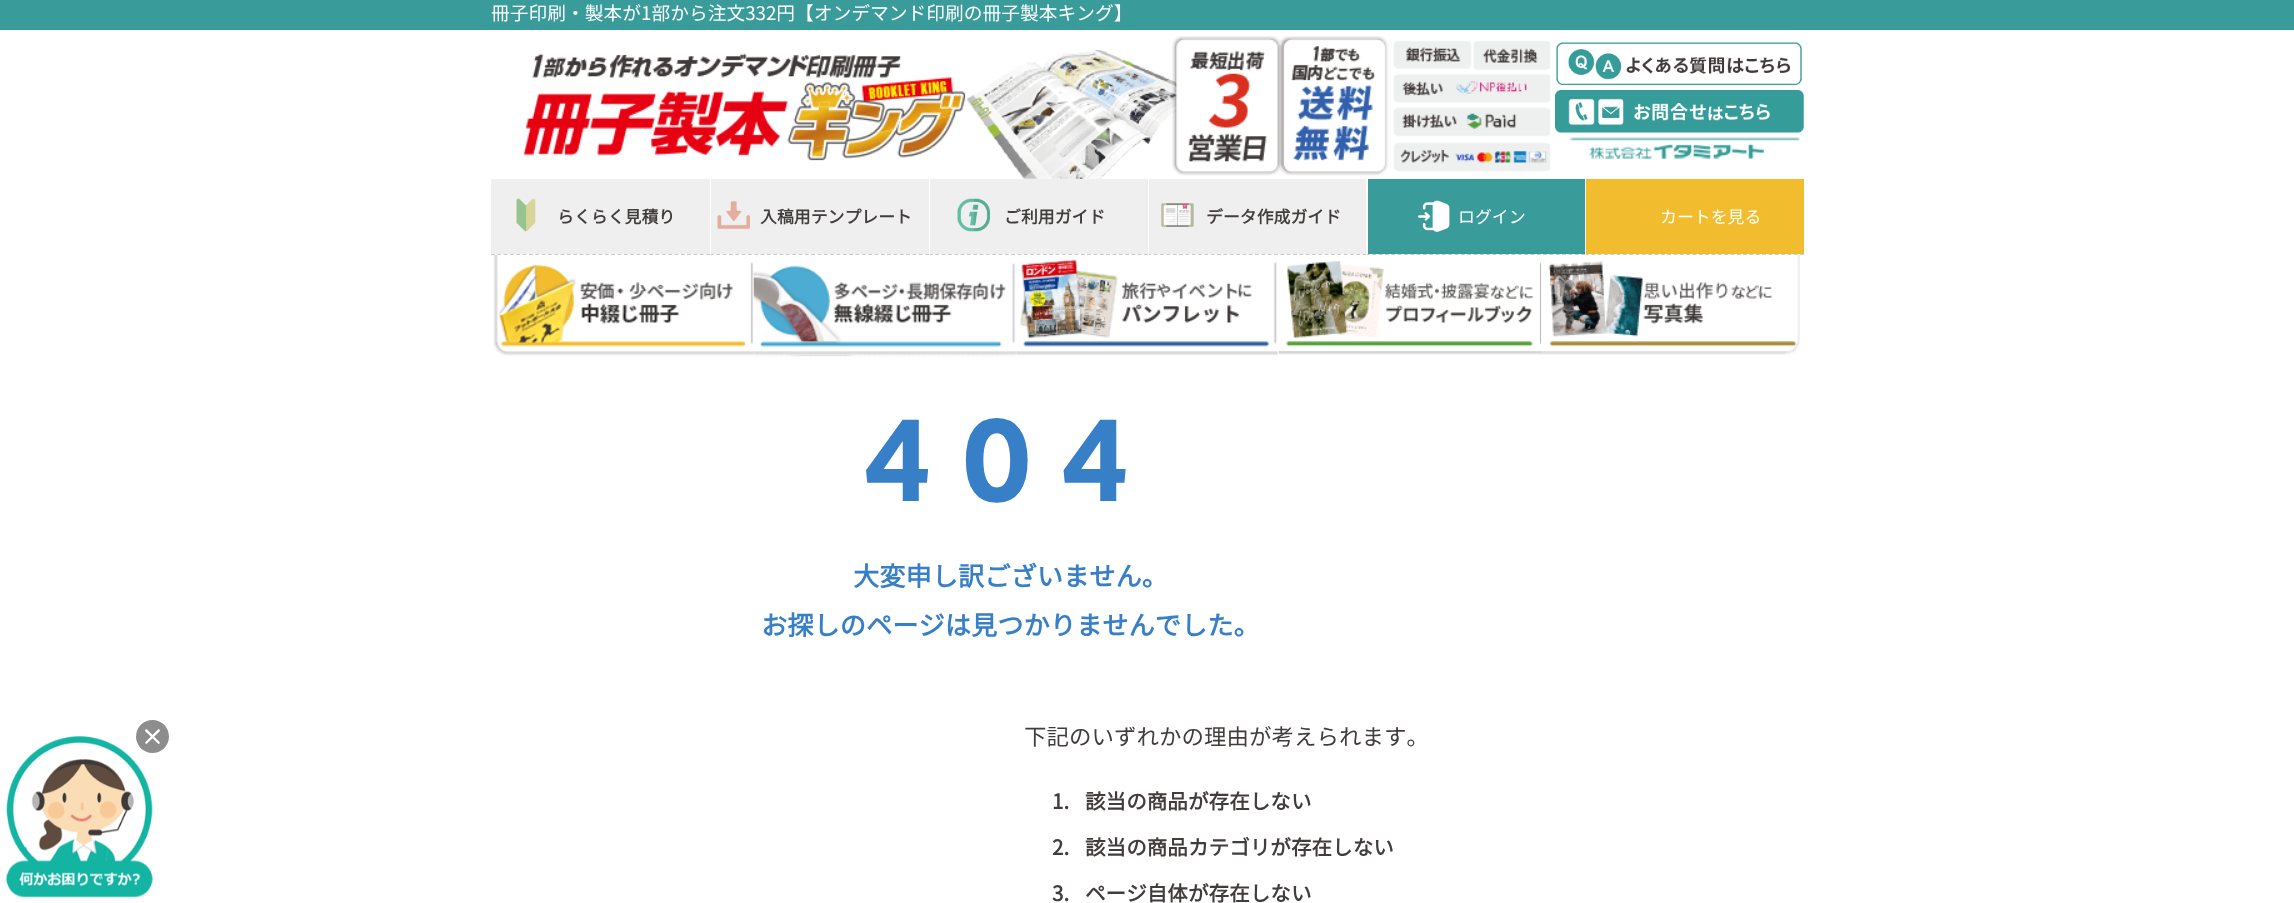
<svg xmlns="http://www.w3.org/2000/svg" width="2294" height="903">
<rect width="100%" height="100%" fill="#fff"/>
<image x="6" y="736" width="147" height="162" href="media/14.png"/>
<circle cx="152.5" cy="736.5" r="16.5" fill="#8d8d8d"/>
<rect width="2294" height="30" fill="#3a9c9a"/>
<text x="491" y="20" style="font-family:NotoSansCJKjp;font-size:18.75px;fill:#fff">冊子印刷・製本が1部から注文332円【オンデマンド印刷の冊子製本キング】</text>
<image x="523" y="36" width="1278" height="143" href="media/1.png"/>
<image x="1556" y="42" width="246" height="43" href="media/2.png"/>
<image x="1555" y="90" width="249" height="43" href="media/3.png"/>
<image x="493" y="255" width="261" height="101" href="media/9.png"/>
<path d="M491 254.5h219" fill="none" stroke="#c9caca" stroke-width="1.2" stroke-dasharray="3.75 2.58"/>
<rect x="491" y="179" width="219" height="75" fill="#efefef"/>
<image x="516" y="198" width="20" height="34" href="media/4.png"/>
<text x="557" y="223" style="font-family:NotoSansCJKjp;font-size:16.9px;font-weight:bold;fill:#413d3c">らくらく見積り</text>
<path d="M710 254.5h219" fill="none" stroke="#c9caca" stroke-width="1.2" stroke-dasharray="3.75 2.58"/>
<rect x="710" y="253" width="1" height="2" fill="#fff"/>
<rect x="711" y="179" width="218" height="75" fill="#efefef"/>
<image x="717" y="201" width="33" height="28" href="media/5.png"/>
<text x="760" y="223" style="font-family:NotoSansCJKjp;font-size:16.9px;font-weight:bold;fill:#413d3c">入稿用テンプレート</text>
<path d="M929 254.5h218.5" fill="none" stroke="#c9caca" stroke-width="1.2" stroke-dasharray="3.75 2.58"/>
<rect x="929" y="253" width="1" height="2" fill="#fff"/>
<rect x="930" y="179" width="218" height="75" fill="#efefef"/>
<image x="957" y="198" width="33" height="34" href="media/6.png"/>
<text x="1004" y="223" style="font-family:NotoSansCJKjp;font-size:16.9px;font-weight:bold;fill:#413d3c">ご利用ガイド</text>
<path d="M1147.5 254.5h218.5" fill="none" stroke="#c9caca" stroke-width="1.2" stroke-dasharray="3.75 2.58"/>
<rect x="1148" y="253" width="1" height="2" fill="#fff"/>
<rect x="1149" y="179" width="217" height="75" fill="#efefef"/>
<image x="1161" y="203" width="33" height="24" href="media/7.png"/>
<text x="1206" y="223" style="font-family:NotoSansCJKjp;font-size:16.9px;font-weight:bold;fill:#413d3c">データ作成ガイド</text>
<image x="1278" y="260" width="264" height="95" href="media/12.png"/>
<image x="1541" y="255" width="259" height="100" href="media/13.png"/>
<path d="M1366 254.5h219" fill="none" stroke="#c9caca" stroke-width="1.2" stroke-dasharray="3.75 2.58"/>
<rect x="1366" y="253" width="1" height="2" fill="#fff"/>
<rect x="1368" y="179" width="217" height="75" fill="#3a9c9a"/>
<image x="1418" y="200" width="32" height="32" href="media/8.png"/>
<text x="1458" y="223" style="font-family:NotoSansCJKjp;font-size:16.9px;fill:#fff">ログイン</text>
<path d="M1585 254.5h219" fill="none" stroke="#c9caca" stroke-width="1.2" stroke-dasharray="3.75 2.58"/>
<rect x="1585" y="253" width="1" height="2" fill="#fff"/>
<rect x="1586" y="179" width="218" height="75" fill="#f1bd2f"/>
<text x="1660" y="223" style="font-family:NotoSansCJKjp;font-size:16.9px;fill:#fff">カートを見る</text>
<image x="753" y="263" width="264" height="94" href="media/10.png"/>
<image x="1016" y="259" width="262" height="97" href="media/11.png"/>
<text x="863" y="501" style="font-family:Secular One;font-size:122px;letter-spacing:28px;fill:#377fc6">404</text>
<text x="853" y="586" style="font-family:NotoSansCJKjp;font-size:26.25px;font-weight:bold;fill:#377fc6">大変申し訳ございません。</text>
<text x="761" y="635" style="font-family:NotoSansCJKjp;font-size:26.25px;font-weight:bold;fill:#377fc6">お探しのページは見つかりませんでした。</text>
<text x="1024" y="745" style="font-family:NotoSansCJKjp;font-size:22.5px;fill:#413d3c">下記のいずれかの理由が考えられます。</text>
<text x="1052" y="809" style="font-family:NotoSansCJKjp;font-size:20.6px;font-weight:bold;fill:#413d3c">1.</text>
<text x="1085" y="809" style="font-family:NotoSansCJKjp;font-size:20.6px;font-weight:bold;fill:#413d3c">該当の商品が存在しない</text>
<text x="1052" y="855" style="font-family:NotoSansCJKjp;font-size:20.6px;font-weight:bold;fill:#413d3c">2.</text>
<text x="1085" y="855" style="font-family:NotoSansCJKjp;font-size:20.6px;font-weight:bold;fill:#413d3c">該当の商品カテゴリが存在しない</text>
<text x="1052" y="901" style="font-family:NotoSansCJKjp;font-size:20.6px;font-weight:bold;fill:#413d3c">3.</text>
<text x="1085" y="901" style="font-family:NotoSansCJKjp;font-size:20.6px;font-weight:bold;fill:#413d3c">ページ自体が存在しない</text>
<path d="M159.5 729.5c.5 .5 .5 1.5 0 2l-12.5 12c-.5 .5-1 .5-1.5 0c-.5-.5-.5-1 0-1.5l12.5-12.5c.5-.5 1-.5 1.5 0z" fill="#fff"/>
<path d="M145.5 729.5c.5-.5 1-.5 1.5 0l12.5 12.5c.5 .5 .5 1 0 1.5c-.5 .5-1 .5-1.5 0l-12.5-12c-.5-.5-.5-1.5 0-2z" fill="#fff"/>
</svg>
